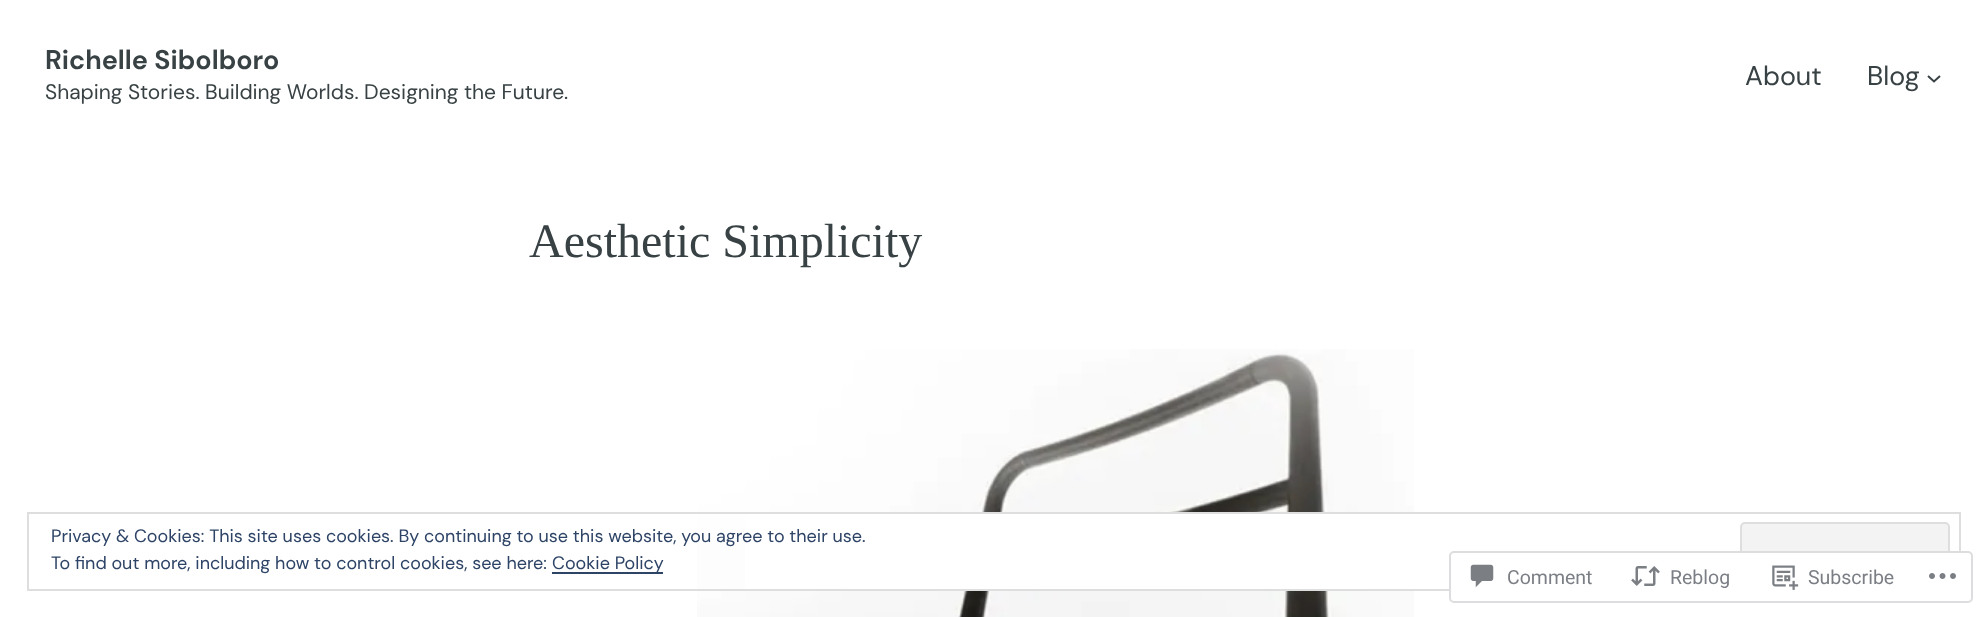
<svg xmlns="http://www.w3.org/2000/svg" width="1987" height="617">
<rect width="100%" height="100%" fill="#fff"/>
<text x="45" y="69" style="font-family:DM Sans;font-size:27px;font-weight:bold;fill:#384143">Richelle Sibolboro</text>
<text x="45" y="99" style="font-family:DM Sans;font-size:21px;fill:#384143">Shaping Stories. Building Worlds. Designing the Future.</text>
<text x="1745" y="85" style="font-family:DM Sans;font-size:27px;fill:#384143">About</text>
<text x="1867" y="85" style="font-family:DM Sans;font-size:27px;fill:#384143">Blog</text>
<path d="M1928 76l6 5.5l6-5.5" fill="none" stroke="#384143" stroke-width="2"/>
<text x="529" y="257" style="font-family:Liberation Serif;font-size:48px;fill:#384143">Aesthetic Simplicity</text>
<image x="697" y="349" width="717" height="268" href="media/1.png"/>
<rect x="745" y="514" width="669" height="75" fill="#fff"/>
<rect x="28" y="513" width="1932" height="77" fill="none" stroke="#dedede" stroke-width="2"/>
<text x="51" y="542" style="font-family:DM Sans;font-size:18px;fill:#2e4467">Privacy &amp; Cookies: This site uses cookies. By continuing to use this website, you agree to their use.</text>
<rect x="1741" y="523" width="208" height="57" rx="4" fill="#f3f3f3" stroke="#dedede" stroke-width="2"/>
<text x="51" y="569" style="font-family:DM Sans;font-size:18px;fill:#2e4467">To find out more, including how to control cookies, see here:</text>
<rect x="552" y="572" width="111" height="2" fill="#2e4467"/>
<text x="552" y="569" style="font-family:DM Sans;font-size:18px;fill:#2e4467">Cookie Policy</text>
<rect x="1449" y="551" width="524" height="52" rx="5" fill="#fffffffa"/>
<rect x="1450" y="552" width="522" height="50" rx="4" fill="none" stroke="#dcdcdefa" stroke-width="2"/>
<image x="1470" y="564" width="24" height="24" href="media/2.png"/>
<text x="1507" y="584" style="font-family:Roboto;font-size:19.5px;fill:#7b7f85">Comment</text>
<image x="1631" y="566" width="29" height="20" href="media/3.png"/>
<text x="1670" y="584" style="font-family:Roboto;font-size:19.5px;fill:#7b7f85">Reblog</text>
<image x="1772" y="565" width="27" height="25" href="media/4.png"/>
<text x="1808" y="584" style="font-family:Roboto;font-size:19.5px;fill:#7b7f85">Subscribe</text>
<image x="1929" y="573" width="27" height="6" href="media/5.png"/>
</svg>
